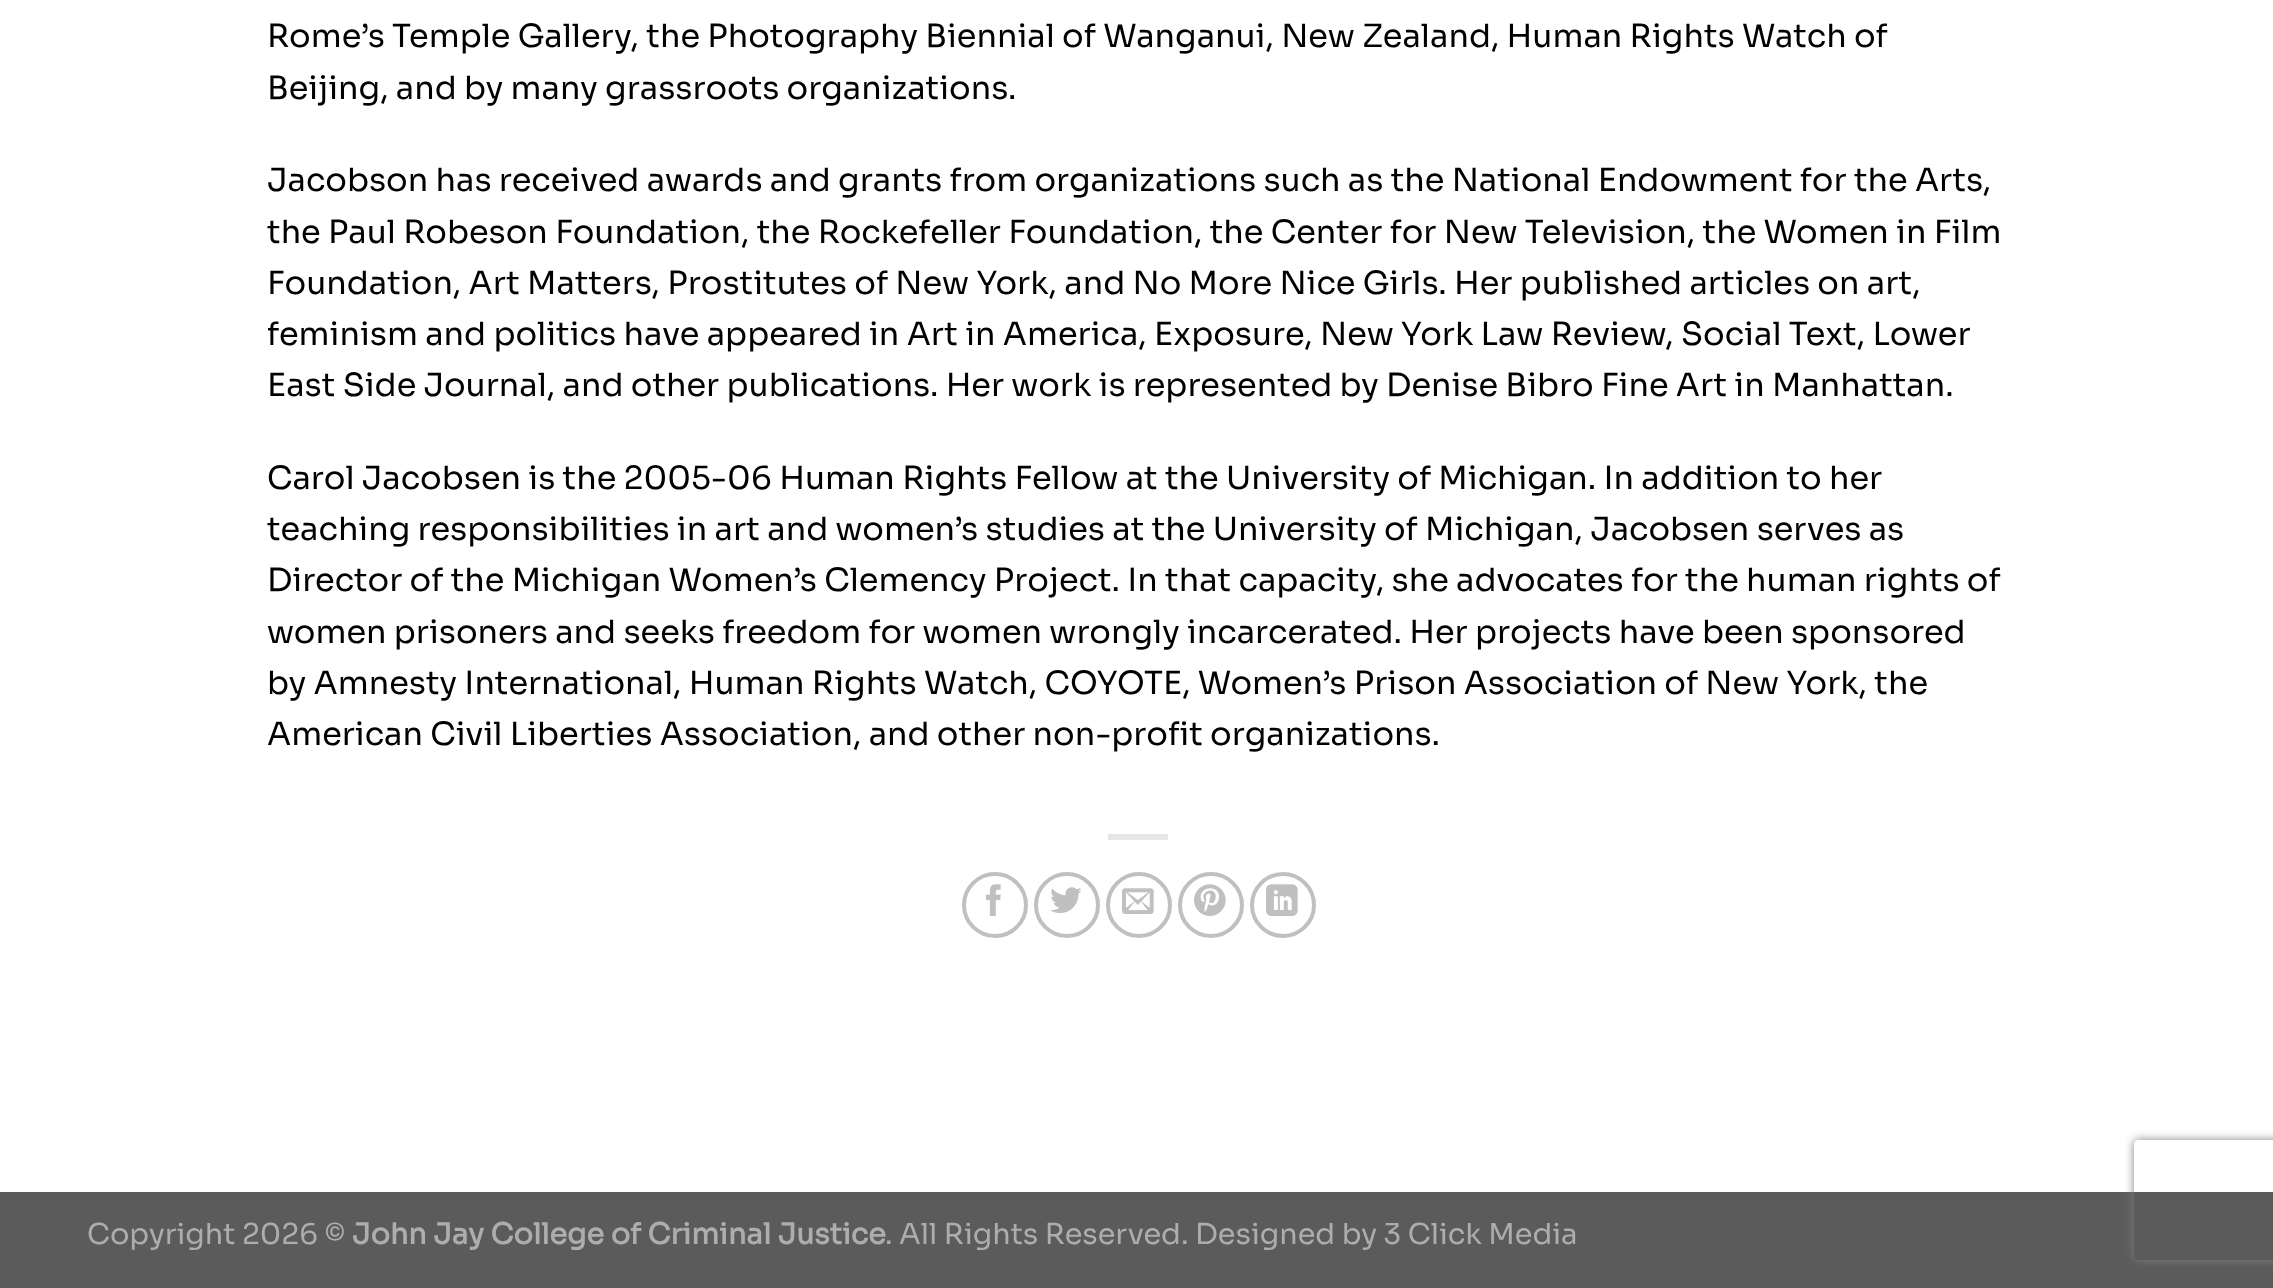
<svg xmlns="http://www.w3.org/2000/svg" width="2273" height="1288">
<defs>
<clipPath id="clip1"><path d="M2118 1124h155v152h-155zm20 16h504c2 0 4 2 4 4v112c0 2-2 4-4 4h-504c-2 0-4-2-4-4v-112c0-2 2-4 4-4z" clip-rule="evenodd"/></clipPath>
</defs>
<rect width="100%" height="100%" fill="#fff"/>
<text x="267" y="47" style="font-family:Sora;font-size:32px;fill:#000">Rome’s Temple Gallery, the Photography Biennial of Wanganui, New Zealand, Human Rights Watch of</text>
<text x="267" y="99" style="font-family:Sora;font-size:32px;fill:#000">Beijing, and by many grassroots organizations.</text>
<text x="267" y="191" style="font-family:Sora;font-size:32px;fill:#000">Jacobson has received awards and grants from organizations such as the National Endowment for the Arts,</text>
<text x="267" y="243" style="font-family:Sora;font-size:32px;fill:#000">the Paul Robeson Foundation, the Rockefeller Foundation, the Center for New Television, the Women in Film</text>
<text x="267" y="294" style="font-family:Sora;font-size:32px;fill:#000">Foundation, Art Matters, Prostitutes of New York, and No More Nice Girls. Her published articles on art,</text>
<text x="267" y="345" style="font-family:Sora;font-size:32px;fill:#000">feminism and politics have appeared in Art in America, Exposure, New York Law Review, Social Text, Lower</text>
<text x="267" y="396" style="font-family:Sora;font-size:32px;fill:#000">East Side Journal, and other publications. Her work is represented by Denise Bibro Fine Art in Manhattan.</text>
<text x="267" y="489" style="font-family:Sora;font-size:32px;fill:#000">Carol Jacobsen is the 2005-06 Human Rights Fellow at the University of Michigan. In addition to her</text>
<text x="267" y="540" style="font-family:Sora;font-size:32px;fill:#000">teaching responsibilities in art and women’s studies at the University of Michigan, Jacobsen serves as</text>
<text x="267" y="591" style="font-family:Sora;font-size:32px;fill:#000">Director of the Michigan Women’s Clemency Project. In that capacity, she advocates for the human rights of</text>
<text x="267" y="643" style="font-family:Sora;font-size:32px;fill:#000">women prisoners and seeks freedom for women wrongly incarcerated. Her projects have been sponsored</text>
<text x="267" y="694" style="font-family:Sora;font-size:32px;fill:#000">by Amnesty International, Human Rights Watch, COYOTE, Women’s Prison Association of New York, the</text>
<text x="267" y="745" style="font-family:Sora;font-size:32px;fill:#000">American Civil Liberties Association, and other non-profit organizations.</text>
<rect x="1108" y="834" width="60" height="6" fill="#e6e6e6"/>
<circle cx="995" cy="905" r="31" fill="none" stroke="#c0c0c0" stroke-width="4"/>
<image x="985" y="884" width="16" height="32" href="media/1.png"/>
<circle cx="1067" cy="905" r="31" fill="none" stroke="#c0c0c0" stroke-width="4"/>
<image x="1050" y="887" width="32" height="26" href="media/2.png"/>
<circle cx="1139" cy="905" r="31" fill="none" stroke="#c0c0c0" stroke-width="4"/>
<image x="1122" y="888" width="32" height="26" href="media/3.png"/>
<circle cx="1211" cy="905" r="31" fill="none" stroke="#c0c0c0" stroke-width="4"/>
<image x="1194" y="884" width="32" height="32" href="media/4.png"/>
<circle cx="1283" cy="905" r="31" fill="none" stroke="#c0c0c0" stroke-width="4"/>
<image x="1266" y="884" width="32" height="32" href="media/5.png"/>
<rect y="1192" width="2273" height="96" fill="#5b5b5b"/>
<text x="87" y="1244" style="font-family:Sora;font-size:28.8px;fill:#adadad">Copyright 2026 ©</text>
<text x="352" y="1244" style="font-family:Sora;font-size:28.8px;font-weight:bold;fill:#adadad">John Jay College of Criminal Justice</text>
<text x="885" y="1244" style="font-family:Sora;font-size:28.8px;fill:#adadad">. All Rights Reserved. Designed by 3 Click Media</text>
<g clip-path="url(#clip1)">
<rect x="2134" y="1140" width="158" height="120" rx="4" fill="#808080" filter="blur(5px)"/>
</g>
</svg>
